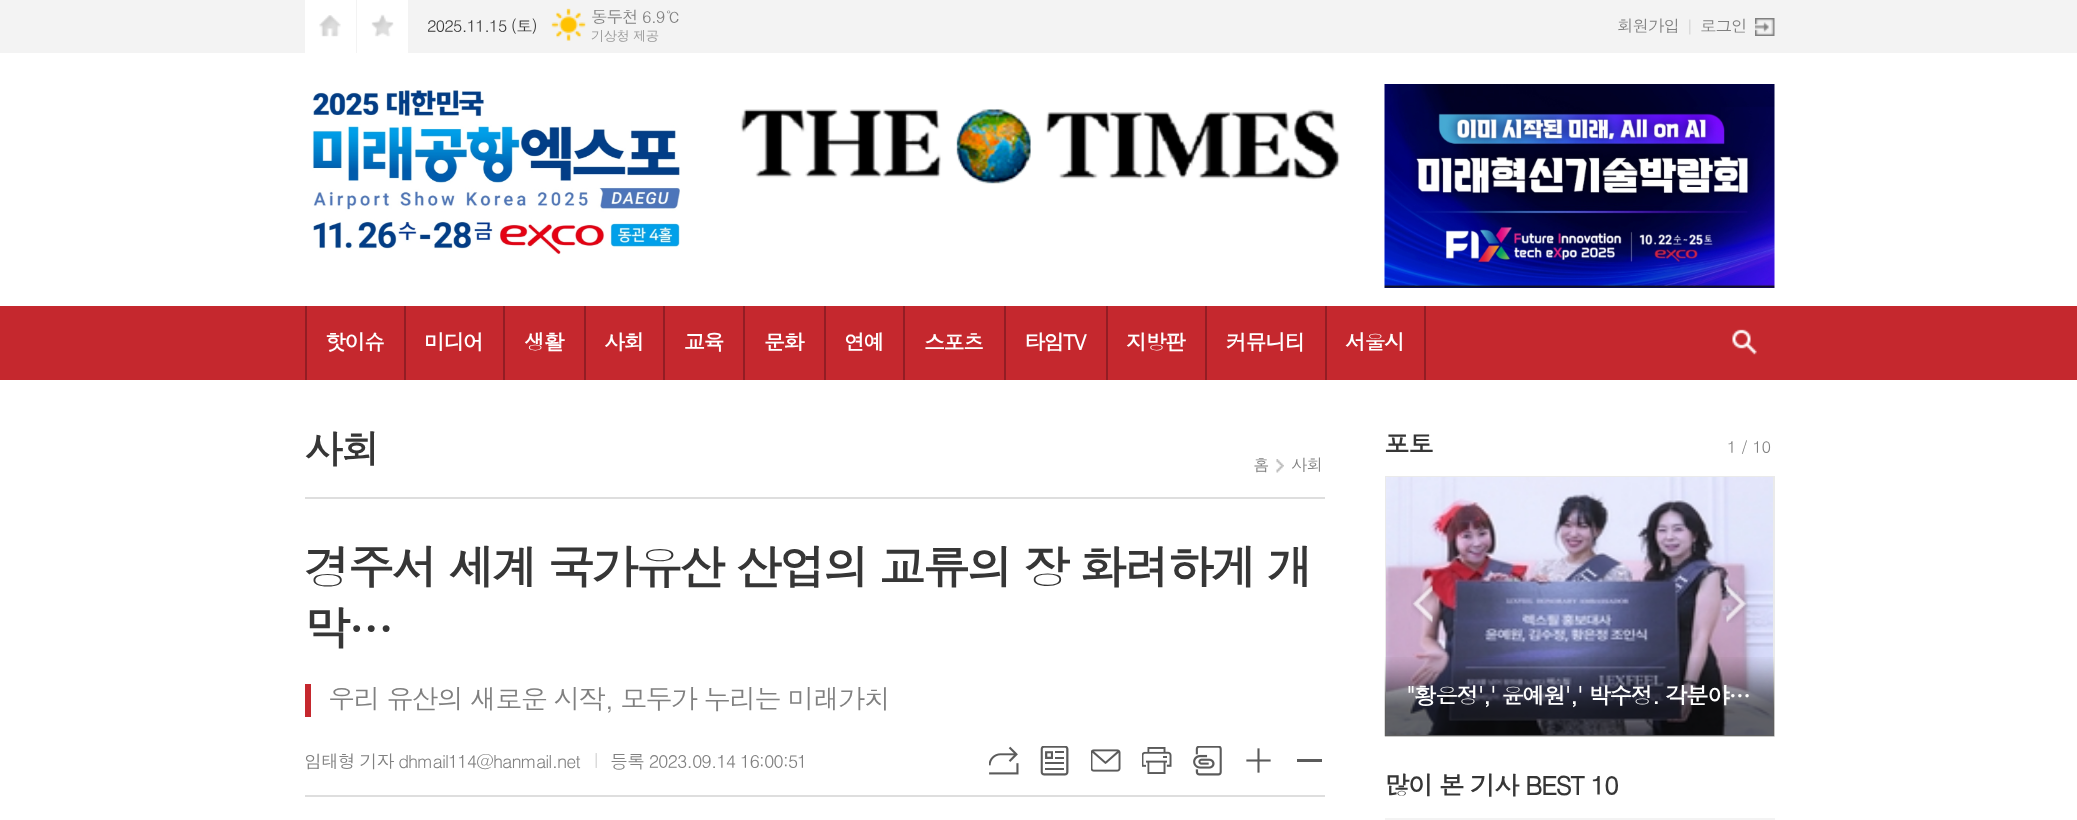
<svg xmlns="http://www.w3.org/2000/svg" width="2077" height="820">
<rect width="100%" height="100%" fill="#fff"/>
<rect width="2077" height="53" fill="#f3f3f3"/>
<rect x="305" width="51" height="53" fill="#fff"/>
<image x="319" y="15" width="22" height="22" href="media/1.png"/>
<rect x="357" width="51" height="53" fill="#fff"/>
<image x="371" y="14" width="23" height="23" href="media/2.png"/>
<text x="427" y="32" style="font-family:Dotum;font-size:16.5px;letter-spacing:-1px;fill:#363636">2025.11.15 (토)</text>
<image x="551" y="8" width="35" height="33" href="media/3.png"/>
<text x="591" y="23" style="font-family:Dotum;font-size:16.5px;letter-spacing:-1px;fill:#808080">동두천 6.9℃</text>
<text x="591" y="41" style="font-family:Dotum;font-size:13.5px;letter-spacing:-0.75px;fill:#999">기상청 제공</text>
<text x="1617" y="32" style="font-family:Dotum;font-size:16.5px;letter-spacing:-1px;fill:#808080">회원가입</text>
<image x="1689" y="19" width="2" height="16" href="media/4.png"/>
<image x="1755" y="18" width="20" height="18" href="media/5.png"/>
<text x="1700" y="32" style="font-family:Dotum;font-size:16.5px;letter-spacing:-1px;fill:#808080">로그인</text>
<image x="312" y="90" width="368" height="165" href="media/6.png"/>
<image x="740" y="109" width="600" height="75" href="media/7.png"/>
<image x="1384" y="84" width="391" height="204" href="media/8.png"/>
<rect y="306" width="2077" height="74" fill="#c5282e"/>
<rect x="404" y="306" width="2" height="74" fill="#931d24"/>
<rect x="305" y="306" width="2" height="74" fill="#931d24"/>
<text x="325" y="350" style="font-family:Dotum;font-size:21px;font-weight:bold;letter-spacing:-1.5px;fill:#fff">핫이슈</text>
<rect x="503" y="306" width="2" height="74" fill="#931d24"/>
<text x="424" y="350" style="font-family:Dotum;font-size:21px;font-weight:bold;letter-spacing:-1.5px;fill:#fff">미디어</text>
<rect x="584" y="306" width="2" height="74" fill="#931d24"/>
<text x="524" y="350" style="font-family:Dotum;font-size:21px;font-weight:bold;letter-spacing:-1.5px;fill:#fff">생활</text>
<rect x="663" y="306" width="2" height="74" fill="#931d24"/>
<text x="604" y="350" style="font-family:Dotum;font-size:21px;font-weight:bold;letter-spacing:-1.5px;fill:#fff">사회</text>
<rect x="743" y="306" width="2" height="74" fill="#931d24"/>
<text x="684" y="350" style="font-family:Dotum;font-size:21px;font-weight:bold;letter-spacing:-1.5px;fill:#fff">교육</text>
<rect x="824" y="306" width="2" height="74" fill="#931d24"/>
<text x="764" y="350" style="font-family:Dotum;font-size:21px;font-weight:bold;letter-spacing:-1.5px;fill:#fff">문화</text>
<rect x="903" y="306" width="2" height="74" fill="#931d24"/>
<text x="844" y="350" style="font-family:Dotum;font-size:21px;font-weight:bold;letter-spacing:-1.5px;fill:#fff">연예</text>
<rect x="1004" y="306" width="2" height="74" fill="#931d24"/>
<text x="924" y="350" style="font-family:Dotum;font-size:21px;font-weight:bold;letter-spacing:-1.5px;fill:#fff">스포츠</text>
<rect x="1106" y="306" width="2" height="74" fill="#931d24"/>
<text x="1024" y="350" style="font-family:Dotum;font-size:21px;font-weight:bold;letter-spacing:-1.5px;fill:#fff">타임TV</text>
<rect x="1205" y="306" width="2" height="74" fill="#931d24"/>
<text x="1126" y="350" style="font-family:Dotum;font-size:21px;font-weight:bold;letter-spacing:-1.5px;fill:#fff">지방판</text>
<rect x="1325" y="306" width="2" height="74" fill="#931d24"/>
<text x="1226" y="350" style="font-family:Dotum;font-size:21px;font-weight:bold;letter-spacing:-1.5px;fill:#fff">커뮤니티</text>
<rect x="1424" y="306" width="2" height="74" fill="#931d24"/>
<text x="1345" y="350" style="font-family:Dotum;font-size:21px;font-weight:bold;letter-spacing:-1.5px;fill:#fff">서울시</text>
<image x="1732" y="329" width="25" height="26" href="media/9.png"/>
<rect x="305" y="497" width="1020" height="2" fill="#dedede"/>
<text x="304" y="464" style="font-family:Dotum;font-size:39px;font-weight:bold;letter-spacing:-2px;fill:#363636">사회</text>
<text x="1253" y="471" style="font-family:Dotum;font-size:16.5px;letter-spacing:-1px;fill:#808080">홈</text>
<image x="1276" y="459" width="8" height="14" href="media/10.png"/>
<text x="1291" y="471" style="font-family:Dotum;font-size:16.5px;letter-spacing:-1px;fill:#808080">사회</text>
<text x="304" y="585" style="font-family:Dotum;font-size:46.5px;font-weight:bold;letter-spacing:-2.8px;fill:#363636">경주서 세계 국가유산 산업의 교류의 장 화려하게 개</text>
<text x="304" y="646" style="font-family:Dotum;font-size:46.5px;font-weight:bold;letter-spacing:-2.8px;fill:#363636">막…</text>
<rect x="305" y="684" width="6" height="33" fill="#c5282e"/>
<text x="328" y="709" style="font-family:Dotum;font-size:27px;letter-spacing:-1.6px;fill:#808080">우리 유산의 새로운 시작, 모두가 누리는 미래가치</text>
<rect x="305" y="795" width="1020" height="2" fill="#dedede"/>
<text x="304" y="768" style="font-family:Dotum;font-size:18px;letter-spacing:-1.1px;fill:#808080">임태형 기자 dhmail114@hanmail.net</text>
<image x="595" y="753" width="2" height="15" href="media/11.png"/>
<text x="610" y="768" style="font-family:Dotum;font-size:18px;letter-spacing:-1.1px;fill:#808080">등록 2023.09.14 16:00:51</text>
<image x="989" y="746" width="30" height="29" href="media/12.png"/>
<image x="1040" y="746" width="29" height="30" href="media/13.png"/>
<image x="1091" y="749" width="30" height="23" href="media/14.png"/>
<image x="1142" y="747" width="30" height="27" href="media/15.png"/>
<image x="1193" y="746" width="29" height="30" href="media/16.png"/>
<image x="1246" y="748" width="25" height="25" href="media/17.png"/>
<rect x="1297" y="759" width="25" height="3" fill="#5b5b5b"/>
<text x="1384" y="453" style="font-family:Dotum;font-size:25.5px;font-weight:bold;letter-spacing:-1.5px;fill:#363636">포토</text>
<text x="1727" y="453" style="font-family:Dotum;font-size:16.5px;letter-spacing:-1px;fill:#808080">1</text>
<text x="1741" y="453" style="font-family:Dotum;font-size:16.5px;letter-spacing:-0.5px;fill:#808080">/ 10</text>
<rect x="1386" y="477" width="388" height="259" fill="none" stroke="#eaeaea" stroke-width="2"/>
<image x="1386" y="477" width="387" height="258" href="media/20.png"/>
<image x="1411" y="584" width="25" height="39" href="media/18.png"/>
<image x="1723" y="584" width="25" height="39" href="media/19.png"/>
<image x="1384" y="657" width="391" height="80" href="media/21.png"/>
<text x="1406" y="704" style="font-family:Dotum;font-size:22.5px;font-weight:bold;letter-spacing:-1.35px;fill:#fff">"황은정',' 윤예원',' 박수정. 각분야…</text>
<text x="1384" y="795" style="font-family:Dotum;font-size:25.5px;font-weight:bold;letter-spacing:-1.5px;fill:#363636">많이 본 기사 BEST 10</text>
<rect x="1385" y="818" width="390" height="2" fill="#f3f3f3"/>
</svg>
